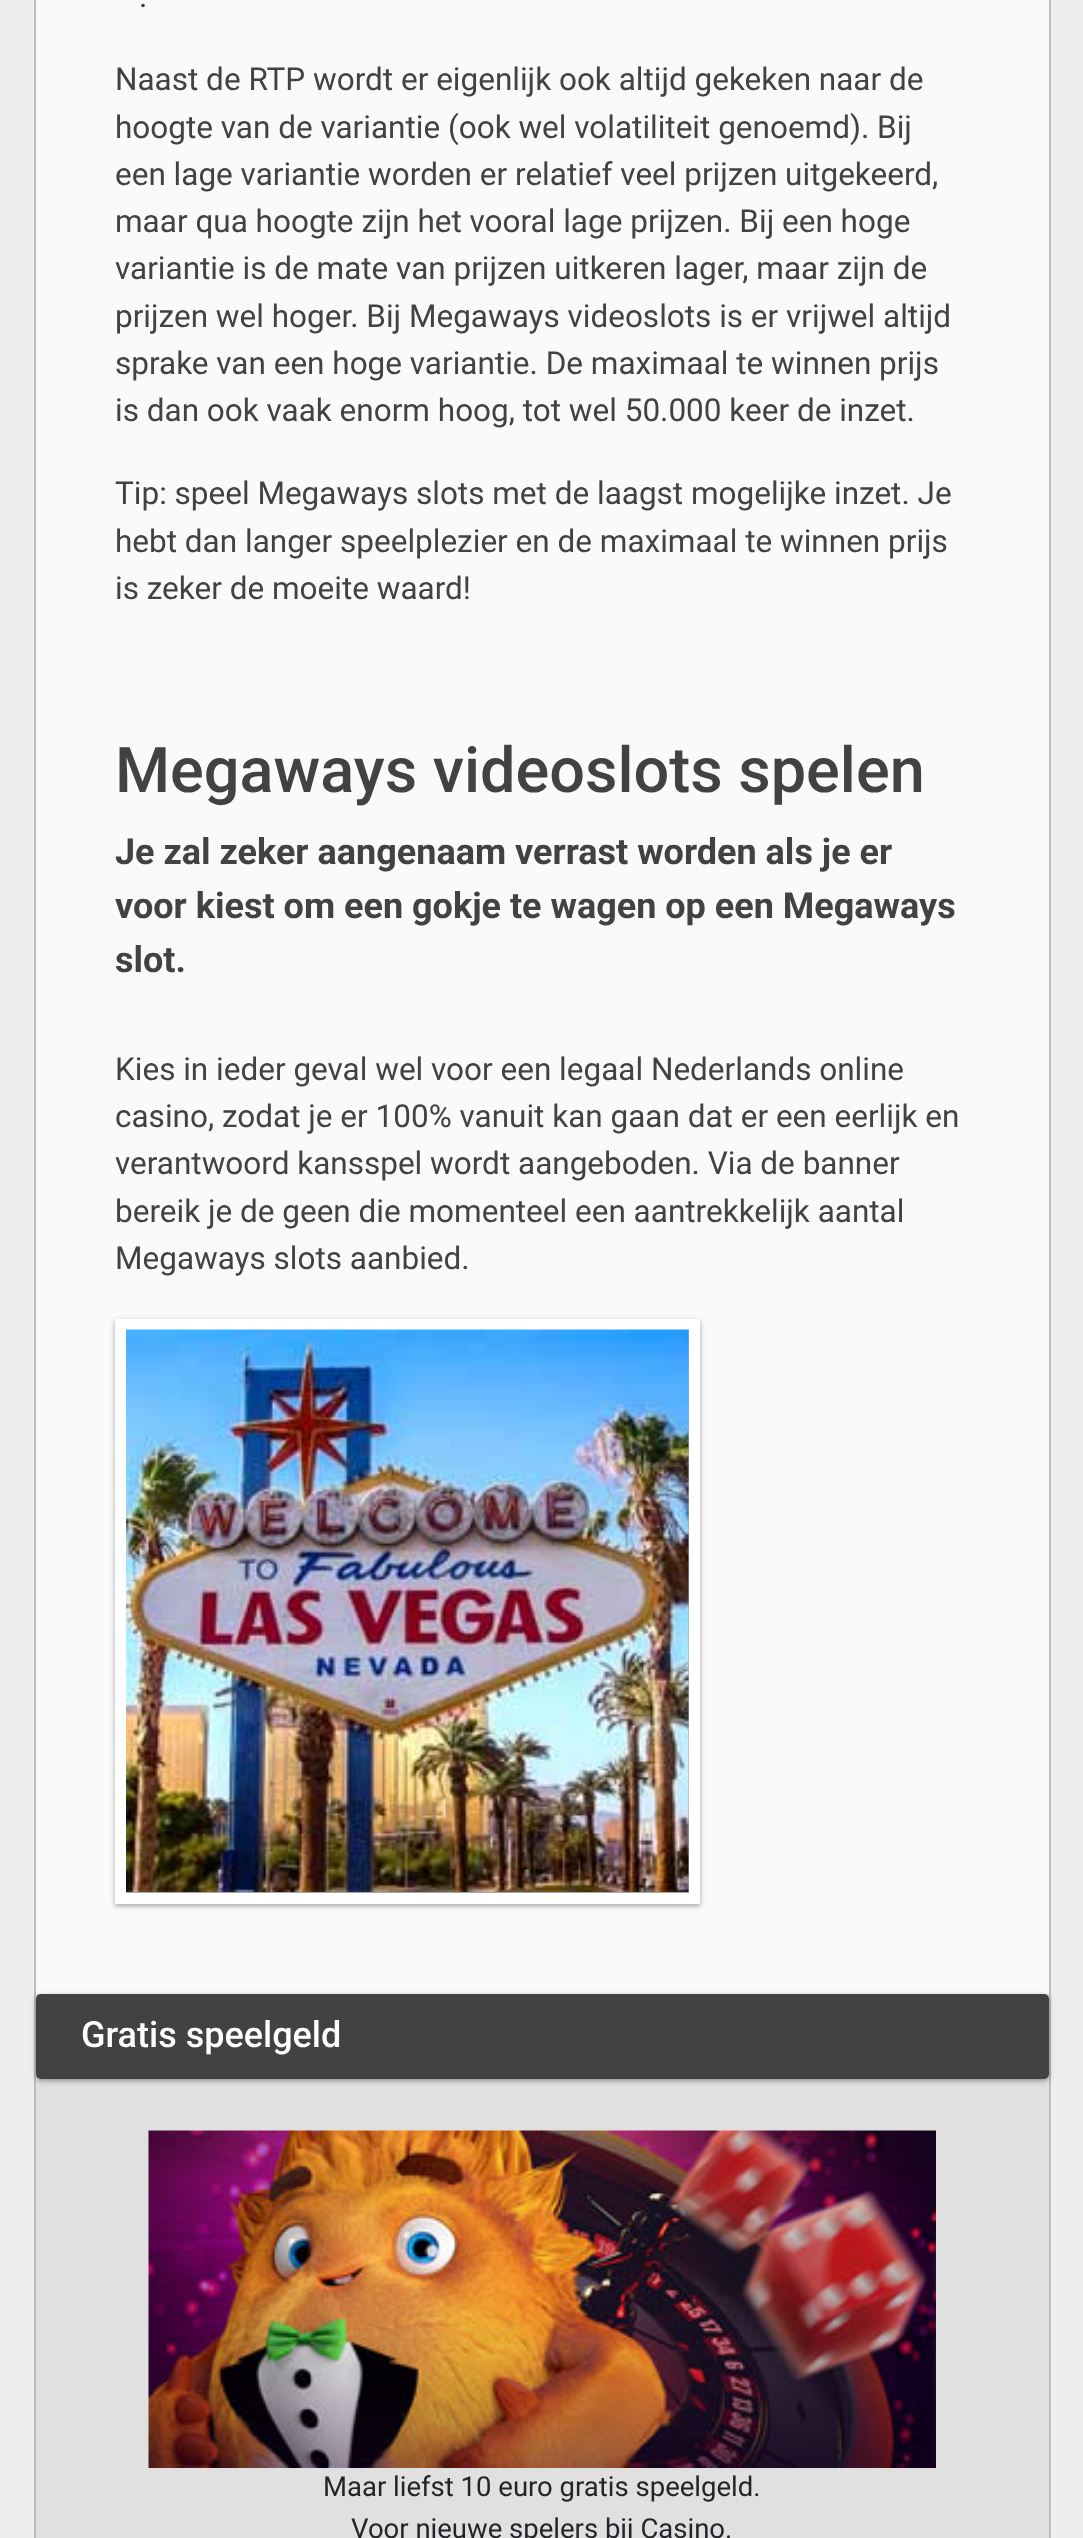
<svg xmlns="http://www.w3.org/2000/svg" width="1083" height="2538">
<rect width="100%" height="100%" fill="#eee"/>
<rect x="36" width="1013" height="1994" fill="#fafafa"/>
<rect x="1049" width="2" height="2538" fill="#bdbdbd"/>
<rect x="34" width="2" height="2538" fill="#bdbdbd"/>
<text x="139" y="7" style="font-family:Roboto;font-size:31.5px;fill:#424242">.</text>
<text x="115" y="90" style="font-family:Roboto;font-size:31.5px;fill:#424242">Naast de RTP wordt er eigenlijk ook altijd gekeken naar de</text>
<text x="115" y="138" style="font-family:Roboto;font-size:31.5px;fill:#424242">hoogte van de variantie (ook wel volatiliteit genoemd). Bij</text>
<text x="115" y="185" style="font-family:Roboto;font-size:31.5px;fill:#424242">een lage variantie worden er relatief veel prijzen uitgekeerd,</text>
<text x="115" y="232" style="font-family:Roboto;font-size:31.5px;fill:#424242">maar qua hoogte zijn het vooral lage prijzen. Bij een hoge</text>
<text x="115" y="279" style="font-family:Roboto;font-size:31.5px;fill:#424242">variantie is de mate van prijzen uitkeren lager, maar zijn de</text>
<text x="115" y="327" style="font-family:Roboto;font-size:31.5px;fill:#424242">prijzen wel hoger. Bij Megaways videoslots is er vrijwel altijd</text>
<text x="115" y="374" style="font-family:Roboto;font-size:31.5px;fill:#424242">sprake van een hoge variantie. De maximaal te winnen prijs</text>
<text x="115" y="421" style="font-family:Roboto;font-size:31.5px;fill:#424242">is dan ook vaak enorm hoog, tot wel 50.000 keer de inzet.</text>
<text x="115" y="504" style="font-family:Roboto;font-size:31.5px;fill:#424242">Tip: speel Megaways slots met de laagst mogelijke inzet. Je</text>
<text x="115" y="552" style="font-family:Roboto;font-size:31.5px;fill:#424242">hebt dan langer speelplezier en de maximaal te winnen prijs</text>
<text x="115" y="599" style="font-family:Roboto;font-size:31.5px;fill:#424242">is zeker de moeite waard!</text>
<text x="115" y="792" style="font-family:Roboto;font-size:63px;font-weight:500;fill:#424242">Megaways videoslots spelen</text>
<text x="115" y="864" style="font-family:Roboto;font-size:36px;font-weight:bold;fill:#424242">Je zal zeker aangenaam verrast worden als je er</text>
<text x="115" y="918" style="font-family:Roboto;font-size:36px;font-weight:bold;fill:#424242">voor kiest om een gokje te wagen op een Megaways</text>
<text x="115" y="972" style="font-family:Roboto;font-size:36px;font-weight:bold;fill:#424242">slot.</text>
<text x="115" y="1080" style="font-family:Roboto;font-size:31.5px;fill:#424242">Kies in ieder geval wel voor een legaal Nederlands online</text>
<text x="115" y="1127" style="font-family:Roboto;font-size:31.5px;fill:#424242">casino, zodat je er 100% vanuit kan gaan dat er een eerlijk en</text>
<text x="115" y="1174" style="font-family:Roboto;font-size:31.5px;fill:#424242">verantwoord kansspel wordt aangeboden. Via de banner</text>
<text x="115" y="1222" style="font-family:Roboto;font-size:31.5px;fill:#424242">bereik je de geen die momenteel een aantrekkelijk aantal</text>
<text x="115" y="1269" style="font-family:Roboto;font-size:31.5px;fill:#424242">Megaways slots aanbied.</text>
<rect x="115" y="1321" width="585" height="585" fill="#0000001f" filter="blur(3.5px)"/>
<rect x="115" y="1321" width="585" height="585" fill="#0000003d" filter="blur(2px)"/>
<rect x="120.5" y="1324.5" width="574" height="574" fill="none" stroke="#fff" stroke-width="11"/>
<image x="126" y="1329" width="563" height="563" href="media/1.png"/>
<rect x="36" y="1994" width="1013" height="544" fill="#e0e0e0"/>
<rect x="36" y="1996" width="1013" height="85" rx="5" fill="#0000003d" filter="blur(2px)"/>
<rect x="36" y="1996" width="1013" height="85" rx="5" fill="#0000001f" filter="blur(3.5px)"/>
<rect x="36" y="1994" width="1013" height="85" rx="5" fill="#424242"/>
<text x="81" y="2047" style="font-family:Roboto;font-size:36px;font-weight:500;fill:#fff">Gratis speelgeld</text>
<image x="148" y="2130" width="788" height="338" href="media/2.png"/>
<text x="323" y="2496" style="font-family:Roboto;font-size:27.5px;fill:#212529">Maar liefst 10 euro gratis speelgeld.</text>
<text x="351" y="2538" style="font-family:Roboto;font-size:27.5px;fill:#212529">Voor nieuwe spelers bij Casino.</text>
</svg>
